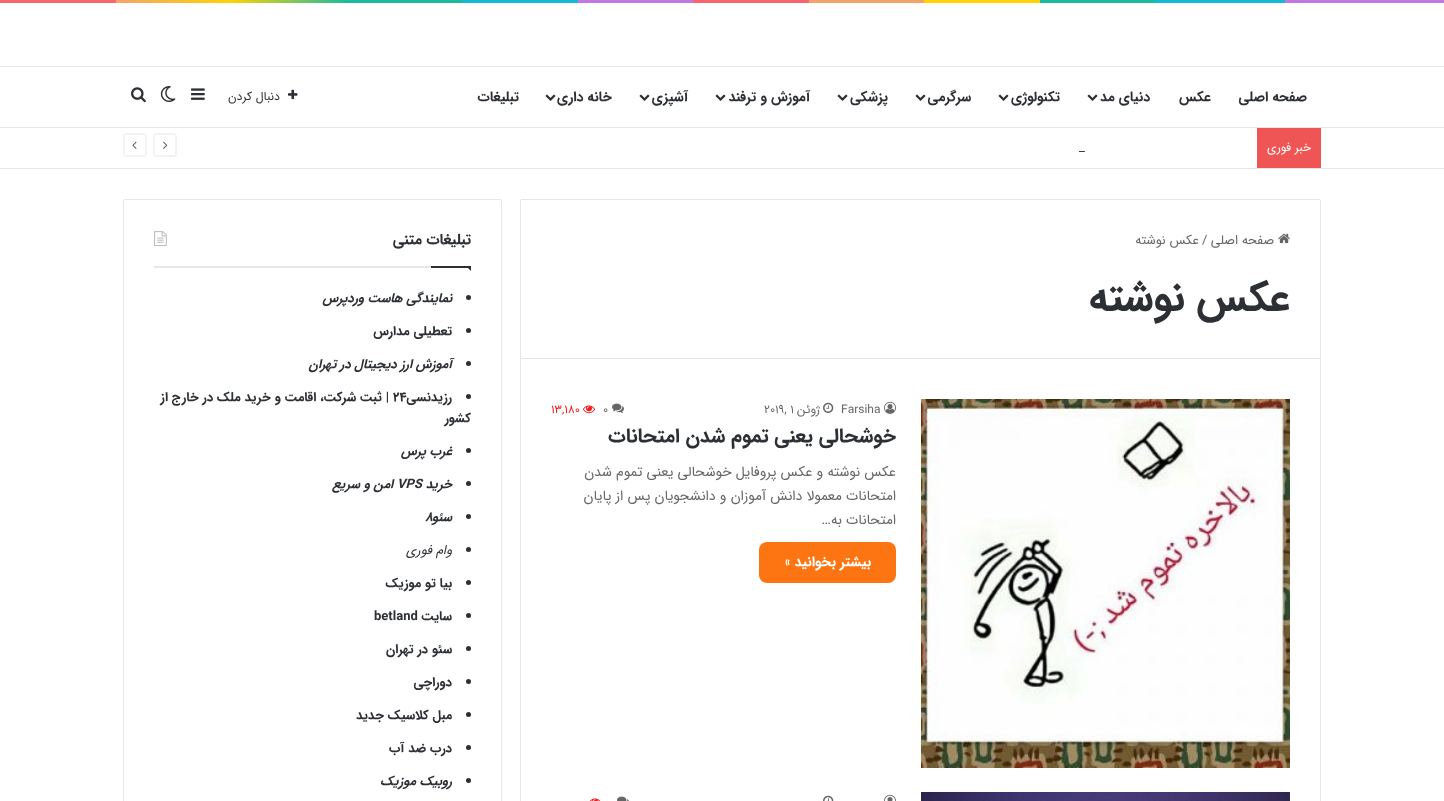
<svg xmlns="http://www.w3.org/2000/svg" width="1444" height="801">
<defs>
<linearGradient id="g1" gradientUnits="userSpaceOnUse" x1="0" y1="1.5" x2="1444" y2="1.5"><stop offset="0" stop-color="#f76570"/><stop offset="0.08" stop-color="#f76570"/><stop offset="0.08" stop-color="#f3a46b"/><stop offset="0.16" stop-color="#ffd205"/><stop offset="0.24" stop-color="#1bbc9b"/><stop offset="0.32" stop-color="#1bbc9b"/><stop offset="0.32" stop-color="#14b9d5"/><stop offset="0.4" stop-color="#14b9d5"/><stop offset="0.4" stop-color="#c377e4"/><stop offset="0.48" stop-color="#c377e4"/><stop offset="0.48" stop-color="#f76570"/><stop offset="0.56" stop-color="#f76570"/><stop offset="0.56" stop-color="#f3a46b"/><stop offset="0.64" stop-color="#f3a46b"/><stop offset="0.64" stop-color="#ffd205"/><stop offset="0.72" stop-color="#ffd205"/><stop offset="0.72" stop-color="#1bbc9b"/><stop offset="0.8" stop-color="#1bbc9b"/><stop offset="0.8" stop-color="#14b9d5"/><stop offset="0.89" stop-color="#14b9d5"/><stop offset="0.89" stop-color="#c377e4"/><stop offset="1" stop-color="#c377e4"/></linearGradient>
</defs>
<rect width="100%" height="100%" fill="#fff"/>
<rect width="1444" height="3" fill="url(#g1)"/>
<rect y="66" width="1444" height="1" fill="#e6e6e6"/>
<rect y="127" width="1444" height="1" fill="#e6e6e6"/>
<text x="1307" y="101" style="font-family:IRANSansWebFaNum;font-size:14px;font-weight:bold;direction:rtl;fill:#2c2f34">صفحه اصلی</text>
<text x="1211" y="101" style="font-family:IRANSansWebFaNum;font-size:14px;font-weight:bold;direction:rtl;fill:#2c2f34">عکس</text>
<text x="1150" y="101" style="font-family:IRANSansWebFaNum;font-size:14px;font-weight:bold;direction:rtl;fill:#2c2f34">دنیای مد</text>
<image x="1087" y="94" width="11" height="7" href="media/1.png"/>
<text x="1060" y="101" style="font-family:IRANSansWebFaNum;font-size:14px;font-weight:bold;direction:rtl;fill:#2c2f34">تکنولوژی</text>
<image x="998" y="94" width="11" height="7" href="media/1.png"/>
<text x="971" y="101" style="font-family:IRANSansWebFaNum;font-size:14px;font-weight:bold;direction:rtl;fill:#2c2f34">سرگرمی</text>
<image x="915" y="94" width="11" height="7" href="media/1.png"/>
<text x="888" y="101" style="font-family:IRANSansWebFaNum;font-size:14px;font-weight:bold;direction:rtl;fill:#2c2f34">پزشکی</text>
<image x="837" y="94" width="11" height="7" href="media/1.png"/>
<text x="810" y="101" style="font-family:IRANSansWebFaNum;font-size:14px;font-weight:bold;direction:rtl;fill:#2c2f34">آموزش و ترفند</text>
<image x="715" y="94" width="11" height="7" href="media/1.png"/>
<text x="688" y="101" style="font-family:IRANSansWebFaNum;font-size:14px;font-weight:bold;direction:rtl;fill:#2c2f34">آشپزی</text>
<image x="639" y="94" width="11" height="7" href="media/1.png"/>
<text x="612" y="101" style="font-family:IRANSansWebFaNum;font-size:14px;font-weight:bold;direction:rtl;fill:#2c2f34">خانه داری</text>
<image x="545" y="94" width="11" height="7" href="media/1.png"/>
<text x="519" y="101" style="font-family:IRANSansWebFaNum;font-size:14px;font-weight:bold;direction:rtl;fill:#2c2f34">تبلیغات</text>
<image x="288" y="89" width="10" height="11" href="media/2.png"/>
<text x="280" y="100" style="font-family:IRANSansWebFaNum;font-size:12px;direction:rtl;fill:#2c2f34">دنبال کردن</text>
<image x="191" y="88" width="14" height="12" href="media/3.png"/>
<image x="160" y="86" width="16" height="16" href="media/4.png"/>
<image x="131" y="87" width="15" height="16" href="media/5.png"/>
<rect y="168" width="1444" height="1" fill="#e6e6e6"/>
<rect x="1257" y="128" width="64" height="40" fill="#f05555"/>
<text x="1311" y="151" style="font-family:IRANSansWebFaNum;font-size:12px;direction:rtl;fill:#fff">خبر فوری</text>
<text x="1079" y="151" style="font-family:IRANSansWebFaNum;font-size:13px;fill:#2c2f34">_</text>
<path d="M174.5 156h-19c-1 0-1.5-.5-1.5-1.5v-19c0-.5 .5-1.5 1.5-1.5h19c.5 0 1.5 1 1.5 1.5v19c0 1-1 1.5-1.5 1.5z" fill="none" stroke="#e6e6e6"/>
<image x="163" y="141" width="5" height="8" href="media/6.png"/>
<path d="M144.5 156h-19c-1 0-1.5-.5-1.5-1.5v-19c0-.5 .5-1.5 1.5-1.5h19c.5 0 1.5 1 1.5 1.5v19c0 1-1 1.5-1.5 1.5z" fill="none" stroke="#e6e6e6"/>
<image x="132" y="141" width="5" height="8" href="media/7.png"/>
<path d="M522 199.5h797c1 0 1.5 .5 1.5 1.5v157.5h-800v-157.5c0-1 .5-1.5 1.5-1.5z" fill="none" stroke="#e6e6e6"/>
<image x="1278" y="233" width="12" height="11" href="media/8.png"/>
<text x="1274" y="244" style="font-family:IRANSansWebFaNum;font-size:13px;direction:rtl;fill:#666">صفحه اصلی</text>
<text x="1202" y="244" style="font-family:IRANSansWebFaNum;font-size:13px;fill:#666">/</text>
<text x="1199" y="244" style="font-family:IRANSansWebFaNum;font-size:13px;direction:rtl;fill:#666">عکس نوشته</text>
<text x="1290" y="310" style="font-family:IRANSansWebFaNum;font-size:41px;font-weight:bold;direction:rtl;fill:#2c2f34">عکس نوشته</text>
<rect x="1320" y="359" width="1" height="442" fill="#e6e6e6"/>
<rect x="520" y="359" width="1" height="442" fill="#e6e6e6"/>
<image x="921" y="399" width="369" height="369" href="media/9.png"/>
<image x="884" y="401" width="12" height="13" href="media/10.png"/>
<text x="841" y="413" style="font-family:IRANSansWebFaNum;font-size:12px;fill:#666">Farsiha</text>
<image x="823" y="402" width="11" height="11" href="media/11.png"/>
<text x="820" y="413" style="font-family:IRANSansWebFaNum;font-size:12px;direction:rtl;fill:#666">ژوئن</text>
<text x="764" y="413" style="font-family:IRANSansWebFaNum;font-size:12px;fill:#666">2019, 1</text>
<image x="612" y="403" width="12" height="10" href="media/12.png"/>
<text x="603" y="413" style="font-family:IRANSansWebFaNum;font-size:12px;fill:#666">0</text>
<image x="583" y="405" width="12" height="9" href="media/13.png"/>
<text x="551" y="413" style="font-family:IRANSansWebFaNum;font-size:12px;fill:#f11e1e">13,180</text>
<text x="896" y="442" style="font-family:IRANSansWebFaNum;font-size:20px;font-weight:bold;direction:rtl;fill:#2c2f34">خوشحالی یعنی تموم شدن امتحانات</text>
<text x="896" y="476" style="font-family:IRANSansWebFaNum;font-size:14px;direction:rtl;fill:#666">عکس نوشته و عکس پروفایل خوشحالی یعنی تموم شدن</text>
<text x="896" y="500" style="font-family:IRANSansWebFaNum;font-size:14px;direction:rtl;fill:#666">امتحانات معمولا دانش آموزان و دانشجویان پس از پایان</text>
<text x="896" y="524" style="font-family:IRANSansWebFaNum;font-size:14px;direction:rtl;fill:#666">امتحانات به…</text>
<rect x="759" y="542" width="137" height="41" rx="8" fill="#fd7512"/>
<text x="871" y="566" style="font-family:IRANSansWebFaNum;font-size:14px;font-weight:bold;direction:rtl;fill:#fff">بیشتر بخوانید »</text>
<image x="921" y="792" width="369" height="9" href="media/14.png"/>
<image x="884" y="794" width="12" height="7" href="media/15.png"/>
<image x="823" y="795" width="11" height="6" href="media/16.png"/>
<image x="617" y="796" width="12" height="5" href="media/17.png"/>
<image x="589" y="798" width="12" height="3" href="media/18.png"/>
<rect x="123.5" y="199.5" width="378" height="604" rx="1.5" fill="none" stroke="#e6e6e6"/>
<rect x="154" y="266" width="277" height="2" fill="#e6e6e6"/>
<text x="471" y="244" style="font-family:IRANSansWebFaNum;font-size:15px;font-weight:bold;direction:rtl;fill:#2c2f34">تبلیغات متنی</text>
<image x="154" y="231" width="13" height="16" href="media/19.png"/>
<path d="M466 266h5v5z" fill="#2c2f34"/>
<rect x="431" y="266" width="40" height="2" fill="#2c2f34"/>
<circle cx="468.5" cy="297.5" r="2.5" fill="#2c2f34"/>
<text x="452" y="302" style="font-family:IRANSansWebFaNum;font-size:13px;font-weight:bold;font-style:italic;direction:rtl;fill:#2c2f34">نمایندگی هاست وردپرس</text>
<circle cx="468.5" cy="330.5" r="2.5" fill="#2c2f34"/>
<text x="452" y="335" style="font-family:IRANSansWebFaNum;font-size:13px;font-weight:bold;direction:rtl;fill:#2c2f34">تعطیلی مدارس</text>
<circle cx="468.5" cy="363.5" r="2.5" fill="#2c2f34"/>
<text x="452" y="368" style="font-family:IRANSansWebFaNum;font-size:13px;font-weight:bold;font-style:italic;direction:rtl;fill:#2c2f34">آموزش ارز دیجیتال در تهران</text>
<circle cx="468.5" cy="396.5" r="2.5" fill="#2c2f34"/>
<text x="452" y="401" style="font-family:IRANSansWebFaNum;font-size:13px;font-weight:bold;direction:rtl;fill:#2c2f34">رزیدنسی</text>
<text x="393" y="401" style="font-family:IRANSansWebFaNum;font-size:13px;font-weight:bold;fill:#2c2f34">24</text>
<text x="389" y="401" style="font-family:IRANSansWebFaNum;font-size:13px;font-weight:bold;direction:rtl;fill:#2c2f34">| ثبت شرکت، اقامت و خرید ملک در خارج از</text>
<text x="471" y="422" style="font-family:IRANSansWebFaNum;font-size:13px;font-weight:bold;direction:rtl;fill:#2c2f34">کشور</text>
<circle cx="468.5" cy="450.5" r="2.5" fill="#2c2f34"/>
<text x="452" y="455" style="font-family:IRANSansWebFaNum;font-size:13px;font-weight:bold;font-style:italic;direction:rtl;fill:#2c2f34">غرب پرس</text>
<circle cx="468.5" cy="483.5" r="2.5" fill="#2c2f34"/>
<text x="452" y="488" style="font-family:IRANSansWebFaNum;font-size:13px;font-weight:bold;font-style:italic;direction:rtl;fill:#2c2f34">خرید</text>
<text x="397" y="488" style="font-family:IRANSansWebFaNum;font-size:13px;font-weight:bold;font-style:italic;fill:#2c2f34">VPS</text>
<text x="393" y="488" style="font-family:IRANSansWebFaNum;font-size:13px;font-weight:bold;font-style:italic;direction:rtl;fill:#2c2f34">امن و سریع</text>
<circle cx="468.5" cy="516.5" r="2.5" fill="#2c2f34"/>
<text x="425" y="521" style="font-family:IRANSansWebFaNum;font-size:13px;font-weight:bold;font-style:italic;fill:#2c2f34">8</text>
<text x="452" y="521" style="font-family:IRANSansWebFaNum;font-size:13px;font-weight:bold;font-style:italic;direction:rtl;fill:#2c2f34">سئو</text>
<circle cx="468.5" cy="549.5" r="2.5" fill="#2c2f34"/>
<text x="452" y="554" style="font-family:IRANSansWebFaNum;font-size:13px;font-style:italic;direction:rtl;fill:#2c2f34">وام فوری</text>
<circle cx="468.5" cy="582.5" r="2.5" fill="#2c2f34"/>
<text x="452" y="587" style="font-family:IRANSansWebFaNum;font-size:13px;font-weight:bold;direction:rtl;fill:#2c2f34">بیا تو موزیک</text>
<circle cx="468.5" cy="615.5" r="2.5" fill="#2c2f34"/>
<text x="452" y="620" style="font-family:IRANSansWebFaNum;font-size:13px;font-weight:bold;direction:rtl;fill:#2c2f34">سایت</text>
<text x="374" y="620" style="font-family:IRANSansWebFaNum;font-size:13px;font-weight:bold;fill:#2c2f34">betland</text>
<circle cx="468.5" cy="648.5" r="2.5" fill="#2c2f34"/>
<text x="452" y="653" style="font-family:IRANSansWebFaNum;font-size:13px;font-weight:bold;direction:rtl;fill:#2c2f34">سئو در تهران</text>
<circle cx="468.5" cy="681.5" r="2.5" fill="#2c2f34"/>
<text x="452" y="686" style="font-family:IRANSansWebFaNum;font-size:13px;font-weight:bold;direction:rtl;fill:#2c2f34">دوراچی</text>
<circle cx="468.5" cy="714.5" r="2.5" fill="#2c2f34"/>
<text x="452" y="719" style="font-family:IRANSansWebFaNum;font-size:13px;font-weight:bold;direction:rtl;fill:#2c2f34">مبل کلاسیک جدید</text>
<circle cx="468.5" cy="747.5" r="2.5" fill="#2c2f34"/>
<text x="452" y="752" style="font-family:IRANSansWebFaNum;font-size:13px;font-weight:bold;direction:rtl;fill:#2c2f34">درب ضد آب</text>
<circle cx="468.5" cy="780.5" r="2.5" fill="#2c2f34"/>
<text x="452" y="785" style="font-family:IRANSansWebFaNum;font-size:13px;font-weight:bold;font-style:italic;direction:rtl;fill:#2c2f34">روبیک موزیک</text>
</svg>
